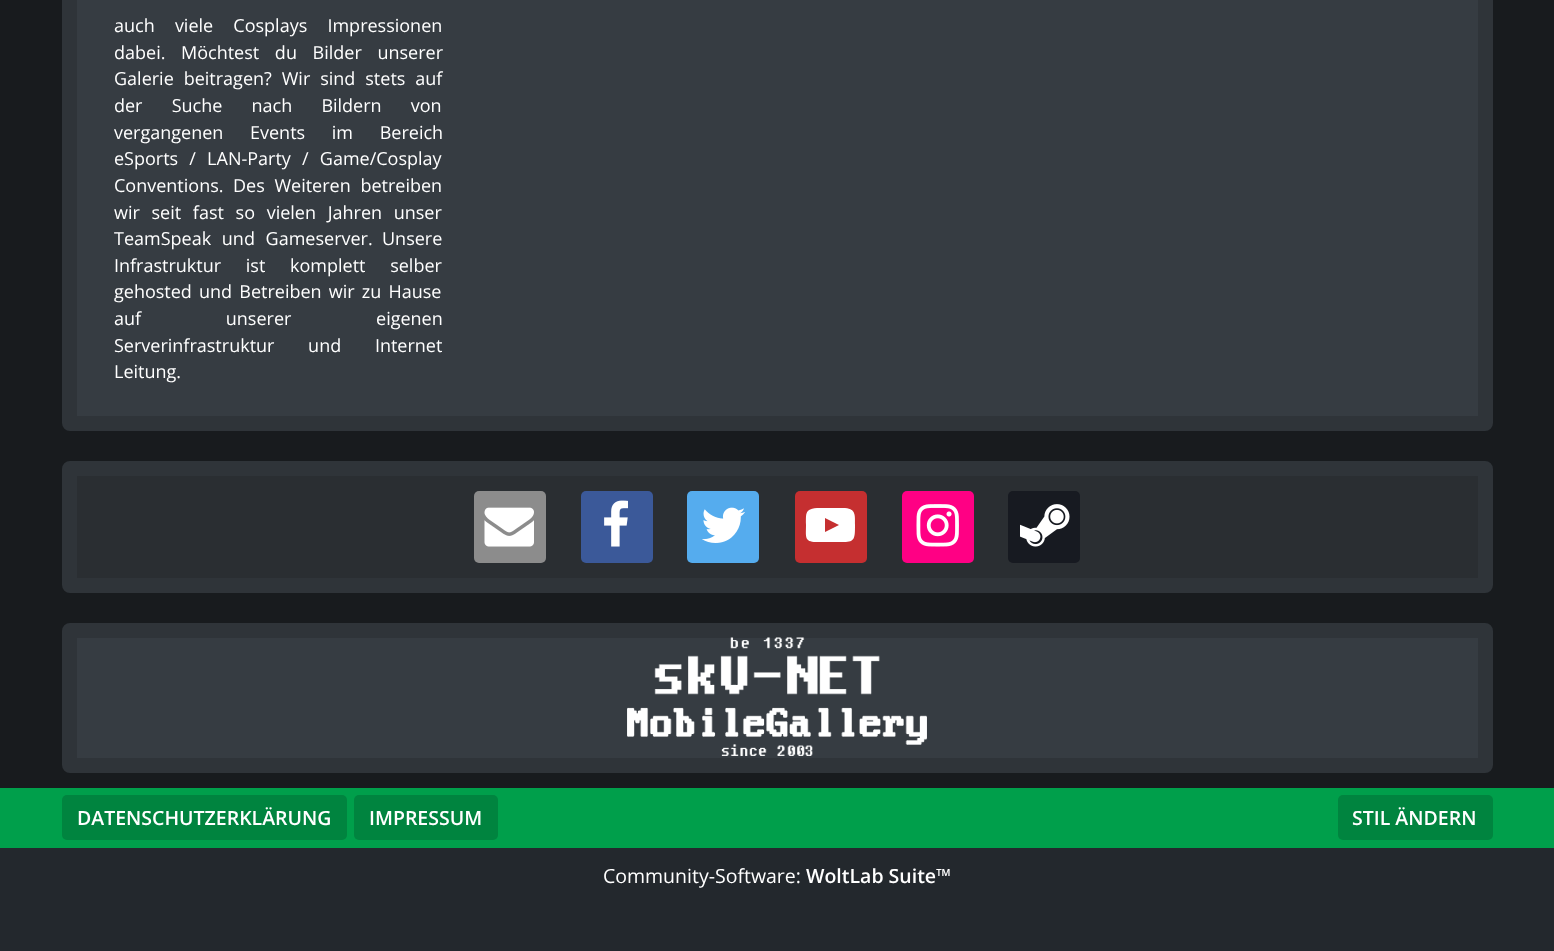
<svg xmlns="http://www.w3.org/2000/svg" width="1554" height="951">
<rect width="100%" height="100%" fill="#009f4b"/>
<rect width="1554" height="788" fill="#181b1e"/>
<rect x="69.5" y="-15.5" width="1416" height="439" rx="0.5" fill="#363c42" stroke="#2f3439" stroke-width="15"/>
<text x="114" y="32" word-spacing="15.5" style="font-family:Open Sans;font-size:18px;fill:#fff">auch viele Cosplays Impressionen</text>
<text x="114" y="59" style="font-family:Open Sans;font-size:18px;fill:#fff">dabei.</text>
<text x="181" y="59" word-spacing="11" style="font-family:Open Sans;font-size:18px;fill:#fff">Möchtest du Bilder unserer</text>
<text x="114" y="85" word-spacing="5.25" style="font-family:Open Sans;font-size:18px;fill:#fff">Galerie beitragen? Wir sind stets auf</text>
<text x="114" y="112" word-spacing="24.5" style="font-family:Open Sans;font-size:18px;fill:#fff">der Suche nach Bildern von</text>
<text x="114" y="139" word-spacing="22" style="font-family:Open Sans;font-size:18px;fill:#fff">vergangenen Events im Bereich</text>
<text x="114" y="165" word-spacing="6.5" style="font-family:Open Sans;font-size:18px;fill:#fff">eSports / LAN-Party / Game/Cosplay</text>
<text x="114" y="192" style="font-family:Open Sans;font-size:18px;fill:#fff">Conventions.</text>
<text x="233" y="192" word-spacing="5" style="font-family:Open Sans;font-size:18px;fill:#fff">Des Weiteren betreiben</text>
<text x="114" y="219" word-spacing="7" style="font-family:Open Sans;font-size:18px;fill:#fff">wir seit fast so vielen Jahren unser</text>
<text x="114" y="245" word-spacing="6" style="font-family:Open Sans;font-size:18px;fill:#fff">TeamSpeak und Gameserver.</text>
<text x="382" y="245" style="font-family:Open Sans;font-size:18px;fill:#fff">Unsere</text>
<text x="114" y="272" word-spacing="20" style="font-family:Open Sans;font-size:18px;fill:#fff">Infrastruktur ist komplett selber</text>
<text x="114" y="298" word-spacing="2.5" style="font-family:Open Sans;font-size:18px;fill:#fff">gehosted und Betreiben wir zu Hause</text>
<text x="114" y="325" word-spacing="80" style="font-family:Open Sans;font-size:18px;fill:#fff">auf unserer eigenen</text>
<text x="114" y="352" word-spacing="29" style="font-family:Open Sans;font-size:18px;fill:#fff">Serverinfrastruktur und Internet</text>
<text x="114" y="378" style="font-family:Open Sans;font-size:18px;fill:#fff">Leitung.</text>
<rect x="69.5" y="468.5" width="1416" height="117" rx="0.5" fill="#2a2e32" stroke="#2f3439" stroke-width="15"/>
<rect x="474" y="491" width="72" height="72" rx="5" fill="#8c8c8c"/>
<image x="484" y="507" width="50" height="40" href="media/1.png"/>
<rect x="581" y="491" width="72" height="72" rx="5" fill="#3b5999"/>
<image x="604" y="500" width="24" height="47" href="media/2.png"/>
<rect x="687" y="491" width="72" height="72" rx="5" fill="#55acee"/>
<image x="702" y="507" width="43" height="36" href="media/3.png"/>
<rect x="795" y="491" width="72" height="72" rx="5" fill="#c52f30"/>
<path d="M825 532l14-7l-14-7zm5-24h15c11 1 10 7 10 17c0 13 0 17-11 17h-28c-12 0-10-6-10-17c0-12-1-16 11-17z" fill="#fff"/>
<rect x="902" y="491" width="72" height="72" rx="5" fill="#ff0084"/>
<image x="916" y="504" width="43" height="43" href="media/4.png"/>
<rect x="1008" y="491" width="72" height="72" rx="5" fill="#171a21"/>
<image x="1020" y="504" width="50" height="43" href="media/5.png"/>
<rect x="69.5" y="630.5" width="1416" height="135" rx="0.5" fill="#363c42" stroke="#2f3439" stroke-width="15"/>
<image x="627" y="637" width="300" height="119" href="media/6.png"/>
<rect x="62" y="795" width="285" height="45" rx="5" fill="#00843f"/>
<text x="77" y="825" style="font-family:Open Sans;font-size:19.5px;font-weight:600;fill:#fff">DATENSCHUTZERKLÄRUNG</text>
<rect x="354" y="795" width="144" height="45" rx="5" fill="#00843f"/>
<text x="369" y="825" style="font-family:Open Sans;font-size:19.5px;font-weight:600;fill:#fff">IMPRESSUM</text>
<rect x="1338" y="795" width="155" height="45" rx="5" fill="#00843f"/>
<text x="1352" y="825" style="font-family:Open Sans;font-size:19.5px;font-weight:600;fill:#fff">STIL ÄNDERN</text>
<rect y="848" width="1554" height="103" fill="#23282d"/>
<text x="603" y="883" style="font-family:Open Sans;font-size:19.5px;fill:#fff">Community-Software:</text>
<text x="806" y="883" style="font-family:Open Sans;font-size:19.5px;font-weight:600;fill:#fff">WoltLab Suite™</text>
</svg>
